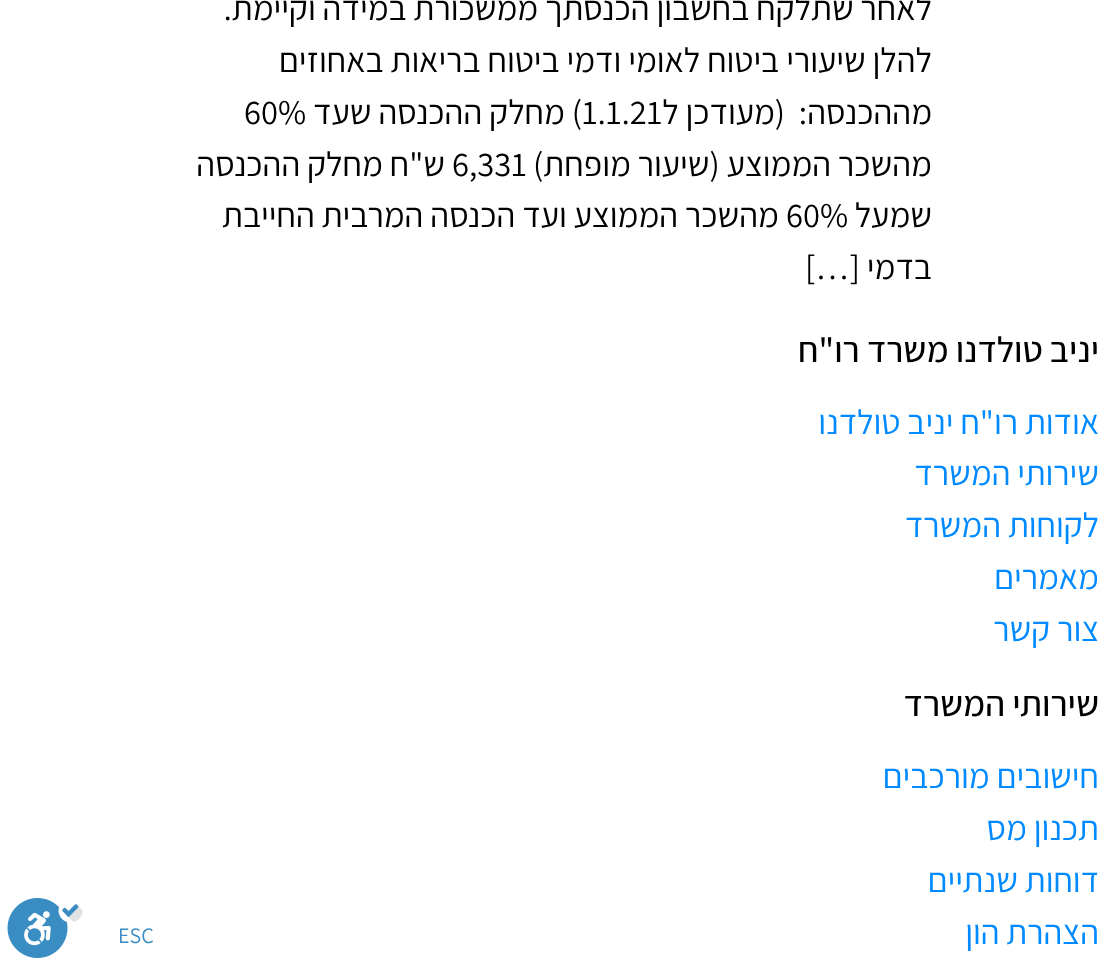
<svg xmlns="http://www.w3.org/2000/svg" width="1114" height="968">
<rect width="100%" height="100%" fill="#fff"/>
<text x="932" y="20" style="font-family:Assistant;font-size:34.5px;direction:rtl;fill:#000">לאחר שתלקח בחשבון הכנסתך ממשכורת במידה וקיימת.</text>
<text x="932" y="72" style="font-family:Assistant;font-size:34.5px;direction:rtl;fill:#000">להלן שיעורי ביטוח לאומי ודמי ביטוח בריאות באחוזים</text>
<text x="932" y="124" style="font-family:Assistant;font-size:34.5px;direction:rtl;fill:#000" xml:space="preserve">מההכנסה:  (מעודכן ל</text>
<text x="582" y="124" style="font-family:Assistant;font-size:34.5px;fill:#000">1.1.21</text>
<text x="582" y="124" style="font-family:Assistant;font-size:34.5px;direction:rtl;fill:#000">) מחלק ההכנסה שעד</text>
<text x="244" y="124" style="font-family:Assistant;font-size:34.5px;fill:#000">60%</text>
<text x="932" y="176" style="font-family:Assistant;font-size:34.5px;direction:rtl;fill:#000">מהשכר הממוצע (שיעור מופחת)</text>
<text x="452" y="176" style="font-family:Assistant;font-size:34.5px;fill:#000">6,331</text>
<text x="445" y="176" style="font-family:Assistant;font-size:34.5px;direction:rtl;fill:#000">ש"ח מחלק ההכנסה</text>
<text x="932" y="227" style="font-family:Assistant;font-size:34.5px;direction:rtl;fill:#000">שמעל</text>
<text x="786" y="227" style="font-family:Assistant;font-size:34.5px;fill:#000">60%</text>
<text x="779" y="227" style="font-family:Assistant;font-size:34.5px;direction:rtl;fill:#000">מהשכר הממוצע ועד הכנסה המרבית החייבת</text>
<text x="932" y="279" style="font-family:Assistant;font-size:34.5px;direction:rtl;fill:#000">בדמי […]</text>
<text x="1099" y="362" style="font-family:Assistant;font-size:36px;font-weight:500;direction:rtl;fill:#000">יניב טולדנו משרד רו"ח</text>
<text x="1099" y="434" style="font-family:Assistant;font-size:34.5px;direction:rtl;fill:#008aff">אודות רו"ח יניב טולדנו</text>
<text x="1099" y="485" style="font-family:Assistant;font-size:34.5px;direction:rtl;fill:#008aff">שירותי המשרד</text>
<text x="1099" y="537" style="font-family:Assistant;font-size:34.5px;direction:rtl;fill:#008aff">לקוחות המשרד</text>
<text x="1099" y="589" style="font-family:Assistant;font-size:34.5px;direction:rtl;fill:#008aff">מאמרים</text>
<text x="1099" y="641" style="font-family:Assistant;font-size:34.5px;direction:rtl;fill:#008aff">צור קשר</text>
<text x="1099" y="716" style="font-family:Assistant;font-size:36px;font-weight:500;direction:rtl;fill:#000">שירותי המשרד</text>
<text x="1099" y="788" style="font-family:Assistant;font-size:34.5px;direction:rtl;fill:#008aff">חישובים מורכבים</text>
<text x="1099" y="840" style="font-family:Assistant;font-size:34.5px;direction:rtl;fill:#008aff">תכנון מס</text>
<text x="1099" y="892" style="font-family:Assistant;font-size:34.5px;direction:rtl;fill:#008aff">דוחות שנתיים</text>
<text x="1099" y="944" style="font-family:Assistant;font-size:34.5px;direction:rtl;fill:#008aff">הצהרת הון</text>
<rect x="1075" y="604" width="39" height="39" rx="4" fill="none" stroke="#fff" stroke-width="2"/>
<text x="118" y="943" style="font-family:Assistant;font-size:22px;fill:#3a8dc2">ESC</text>
<image x="7" y="898" width="76" height="60" href="media/1.png"/>
</svg>
